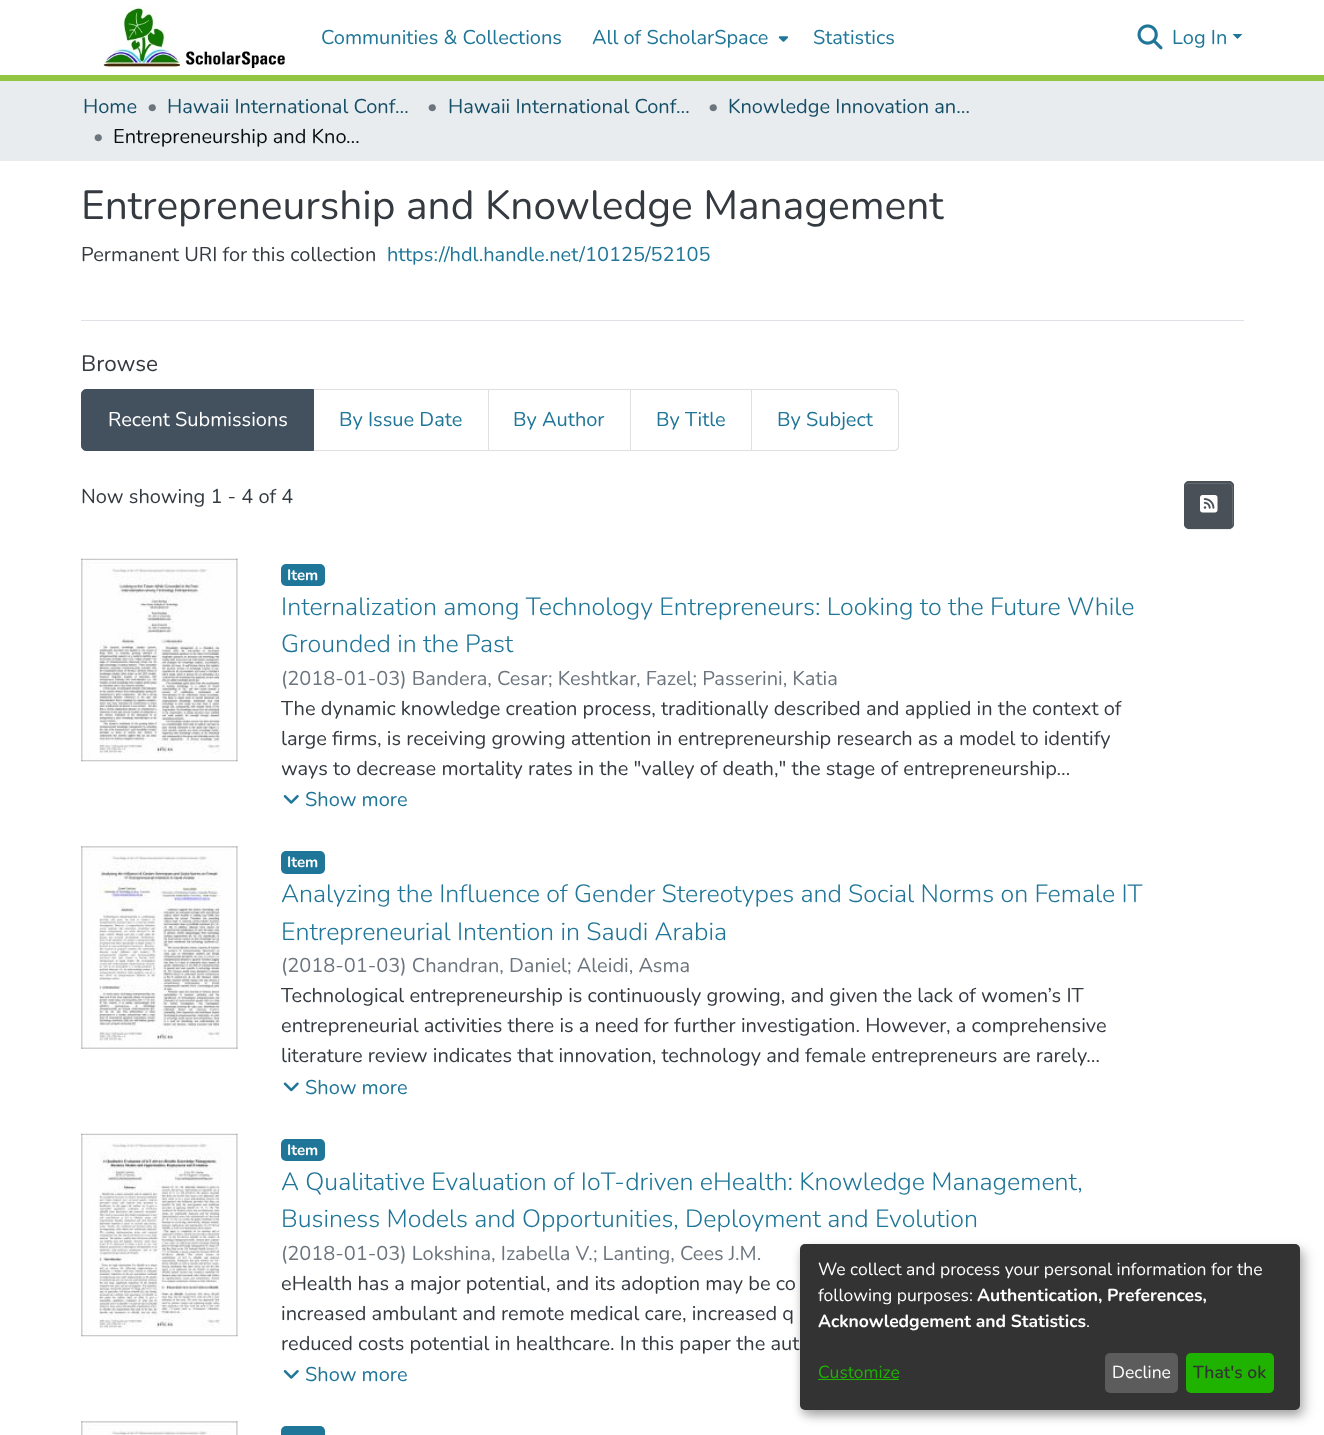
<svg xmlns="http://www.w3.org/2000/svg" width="1324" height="1435">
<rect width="100%" height="100%" fill="#fff"/>
<rect y="75" width="1324" height="6" fill="#92c642"/>
<image x="103" y="6" width="183" height="63" href="media/1.png"/>
<text x="321" y="44" style="font-family:Nunito;font-size:20px;fill:#207698">Communities &amp; Collections</text>
<text x="592" y="44" style="font-family:Nunito;font-size:20px;fill:#207698">All of ScholarSpace</text>
<image x="778" y="36" width="11" height="6" href="media/2.png"/>
<text x="813" y="44" style="font-family:Nunito;font-size:20px;fill:#207698">Statistics</text>
<image x="1137" y="24" width="26" height="26" href="media/3.png"/>
<text x="1172" y="44" style="font-family:Nunito;font-size:20px;fill:#207698">Log In</text>
<path d="M1232.5 34h10l-5 5z" fill="#207698"/>
<rect y="81" width="1324" height="80" fill="#e9ecef"/>
<text x="83" y="113" style="font-family:Nunito;font-size:20px;fill:#154e66">Home</text>
<text x="147" y="113" style="font-family:Nunito;font-size:20px;fill:#6c757d">•</text>
<text x="167" y="113" style="font-family:Nunito;font-size:20px;fill:#154e66">Hawaii International Conf…</text>
<text x="427" y="113" style="font-family:Nunito;font-size:20px;fill:#6c757d">•</text>
<text x="448" y="113" style="font-family:Nunito;font-size:20px;fill:#154e66">Hawaii International Conf…</text>
<text x="708" y="113" style="font-family:Nunito;font-size:20px;fill:#6c757d">•</text>
<text x="728" y="113" style="font-family:Nunito;font-size:20px;fill:#154e66">Knowledge Innovation an…</text>
<text x="93" y="143" style="font-family:Nunito;font-size:20px;fill:#6c757d">•</text>
<text x="113" y="143" style="font-family:Nunito;font-size:20px;fill:#040d11">Entrepreneurship and Kno…</text>
<rect x="81" y="320" width="1163" height="1" fill="#dee2e6"/>
<text x="81" y="219" style="font-family:Nunito;font-size:40.7px;fill:#343a40">Entrepreneurship and Knowledge Management</text>
<text x="81" y="261" style="font-family:Nunito;font-size:20px;fill:#343a40">Permanent URI for this collection</text>
<text x="387" y="261" style="font-family:Nunito;font-size:20px;fill:#207698">https://hdl.handle.net/10125/52105</text>
<text x="81" y="371" style="font-family:Nunito;font-size:22.5px;fill:#343a40">Browse</text>
<path d="M86 389.5h227.5v61h-227.5c-2.5 0-4.5-2-4.5-4.5v-52c0-2.5 2-4.5 4.5-4.5z" fill="#43515f" stroke="#43515f"/>
<text x="108" y="426" style="font-family:Nunito;font-size:20px;fill:#fff">Recent Submissions</text>
<path d="M314 389h175l-1 1h-174z" fill="#dfdfdf"/>
<path d="M489 389v62l-1-1v-60z" fill="#0000001f"/>
<path d="M489 451h-175v-1h174z" fill="#0000001f"/>
<text x="339" y="426" style="font-family:Nunito;font-size:20px;fill:#207698">By Issue Date</text>
<path d="M489 389h142l-1 1h-141z" fill="#dfdfdf"/>
<path d="M631 389v62l-1-1v-60z" fill="#0000001f"/>
<path d="M631 451h-142v-1h141z" fill="#0000001f"/>
<text x="513" y="426" style="font-family:Nunito;font-size:20px;fill:#207698">By Author</text>
<path d="M631 389h121l-1 1h-120z" fill="#dfdfdf"/>
<path d="M752 389v62l-1-1v-60z" fill="#0000001f"/>
<path d="M752 451h-121v-1h120z" fill="#0000001f"/>
<text x="656" y="426" style="font-family:Nunito;font-size:20px;fill:#207698">By Title</text>
<path d="M752 389h142c3 0 5 2 5 5v52c0 3-2 5-5 5h-142zm0 1h142c2 0 4 2 4 4v52c0 2-2 4-4 4h-142z" fill="#dfdfdf" fill-rule="evenodd"/>
<text x="777" y="426" style="font-family:Nunito;font-size:20px;fill:#207698">By Subject</text>
<text x="81" y="503" style="font-family:Nunito;font-size:20px;fill:#343a40">Now showing 1 - 4 of 4</text>
<rect x="1184" y="483" width="50" height="47" rx="5" fill="#00000012" filter="blur(0.5px)"/>
<rect x="1184" y="481" width="50" height="48" rx="5" fill="#495057"/>
<path d="M1189 484h33c5 0 10-2 10 4v39c0-1 1-2 1-3v-37c0-2-2-4-4-4h-40c-2 0-4 2-4 4v1c0-3 2-4 4-4z" fill="#646a70"/>
<rect x="1184.5" y="481.5" width="49" height="47" rx="4.5" fill="none" stroke="#495057"/>
<image x="1200" y="495" width="18" height="18" href="media/4.png"/>
<image x="81" y="558" width="157" height="204" href="media/5.png"/>
<rect x="281" y="564" width="44" height="22" rx="5" fill="#207698"/>
<text x="287" y="580" style="font-family:Nunito;font-size:15px;font-weight:bold;fill:#fff">Item</text>
<text x="281" y="615" style="font-family:Nunito;font-size:25px;font-weight:300;fill:#207698">Internalization among Technology Entrepreneurs: Looking to the Future While</text>
<text x="281" y="652" style="font-family:Nunito;font-size:25px;font-weight:300;fill:#207698">Grounded in the Past</text>
<text x="281" y="685" style="font-family:Nunito;font-size:20px;fill:#6c757d">(2018-01-03) Bandera, Cesar; Keshtkar, Fazel; Passerini, Katia</text>
<text x="281" y="715" style="font-family:Nunito;font-size:20px;fill:#343a40">The dynamic knowledge creation process, traditionally described and applied in the context of</text>
<text x="281" y="745" style="font-family:Nunito;font-size:20px;fill:#343a40">large firms, is receiving growing attention in entrepreneurship research as a model to identify</text>
<text x="281" y="775" style="font-family:Nunito;font-size:20px;fill:#343a40">ways to decrease mortality rates in the "valley of death," the stage of entrepreneurship…</text>
<image x="283" y="795" width="16" height="9" href="media/6.png"/>
<text x="305" y="806" style="font-family:Nunito;font-size:20px;fill:#207698">Show more</text>
<image x="81" y="846" width="157" height="203" href="media/7.png"/>
<rect x="281" y="851" width="44" height="23" rx="5" fill="#207698"/>
<text x="287" y="867" style="font-family:Nunito;font-size:15px;font-weight:bold;fill:#fff">Item</text>
<text x="281" y="902" style="font-family:Nunito;font-size:25px;font-weight:300;fill:#207698">Analyzing the Influence of Gender Stereotypes and Social Norms on Female IT</text>
<text x="281" y="940" style="font-family:Nunito;font-size:25px;font-weight:300;fill:#207698">Entrepreneurial Intention in Saudi Arabia</text>
<text x="281" y="972" style="font-family:Nunito;font-size:20px;fill:#6c757d">(2018-01-03) Chandran, Daniel; Aleidi, Asma</text>
<text x="281" y="1002" style="font-family:Nunito;font-size:20px;fill:#343a40">Technological entrepreneurship is continuously growing, and given the lack of women’s IT</text>
<text x="281" y="1032" style="font-family:Nunito;font-size:20px;fill:#343a40">entrepreneurial activities there is a need for further investigation. However, a comprehensive</text>
<text x="281" y="1062" style="font-family:Nunito;font-size:20px;fill:#343a40">literature review indicates that innovation, technology and female entrepreneurs are rarely…</text>
<image x="283" y="1082" width="16" height="10" href="media/8.png"/>
<text x="305" y="1094" style="font-family:Nunito;font-size:20px;fill:#207698">Show more</text>
<image x="81" y="1133" width="157" height="204" href="media/9.png"/>
<rect x="281" y="1139" width="44" height="22" rx="5" fill="#207698"/>
<text x="287" y="1155" style="font-family:Nunito;font-size:15px;font-weight:bold;fill:#fff">Item</text>
<text x="281" y="1190" style="font-family:Nunito;font-size:25px;font-weight:300;fill:#207698">A Qualitative Evaluation of IoT-driven eHealth: Knowledge Management,</text>
<text x="281" y="1227" style="font-family:Nunito;font-size:25px;font-weight:300;fill:#207698">Business Models and Opportunities, Deployment and Evolution</text>
<text x="281" y="1260" style="font-family:Nunito;font-size:20px;fill:#6c757d">(2018-01-03) Lokshina, Izabella V.; Lanting, Cees J.M.</text>
<text x="281" y="1290" style="font-family:Nunito;font-size:20px;fill:#343a40">eHealth has a major potential, and its adoption may be co</text>
<text x="281" y="1320" style="font-family:Nunito;font-size:20px;fill:#343a40">increased ambulant and remote medical care, increased q</text>
<text x="281" y="1350" style="font-family:Nunito;font-size:20px;fill:#343a40">reduced costs potential in healthcare. In this paper the aut</text>
<image x="283" y="1370" width="16" height="9" href="media/6.png"/>
<text x="305" y="1381" style="font-family:Nunito;font-size:20px;fill:#207698">Show more</text>
<image x="81" y="1421" width="157" height="14" href="media/10.png"/>
<rect x="281" y="1426" width="44" height="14" rx="5" fill="#207698"/>
<rect x="806" y="1250" width="500" height="166" rx="5" fill="#00000030" filter="blur(6px)"/>
<rect x="800" y="1249" width="500" height="166" rx="5" fill="#00000033" filter="blur(4px)"/>
<rect x="800" y="1244" width="500" height="166" rx="5" fill="#333"/>
<text x="818" y="1275" style="font-family:Nunito;font-size:17.5px;fill:#fff">We collect and process your personal information for the</text>
<text x="818" y="1301" style="font-family:Nunito;font-size:17.5px;fill:#fff">following purposes:</text>
<text x="977" y="1301" style="font-family:Nunito;font-size:17.5px;font-weight:bold;fill:#fff">Authentication, Preferences,</text>
<text x="818" y="1327" style="font-family:Nunito;font-size:17.5px;font-weight:bold;fill:#fff">Acknowledgement and Statistics</text>
<text x="1086" y="1327" style="font-family:Nunito;font-size:17.5px;fill:#fff">.</text>
<text x="818" y="1378" style="font-family:Nunito;font-size:17.5px;fill:#1fb300">Customize</text>
<rect x="818" y="1379" width="81" height="1" fill="#1fb300"/>
<rect x="1105" y="1353" width="73" height="40" rx="5" fill="#5c5c5c"/>
<text x="1112" y="1378" style="font-family:Nunito;font-size:17.5px;fill:#fff">Decline</text>
<rect x="1186" y="1353" width="88" height="40" rx="5" fill="#1fb300"/>
<text x="1193" y="1378" style="font-family:Nunito;font-size:17.5px;font-weight:600;fill:#333">That's ok</text>
</svg>
